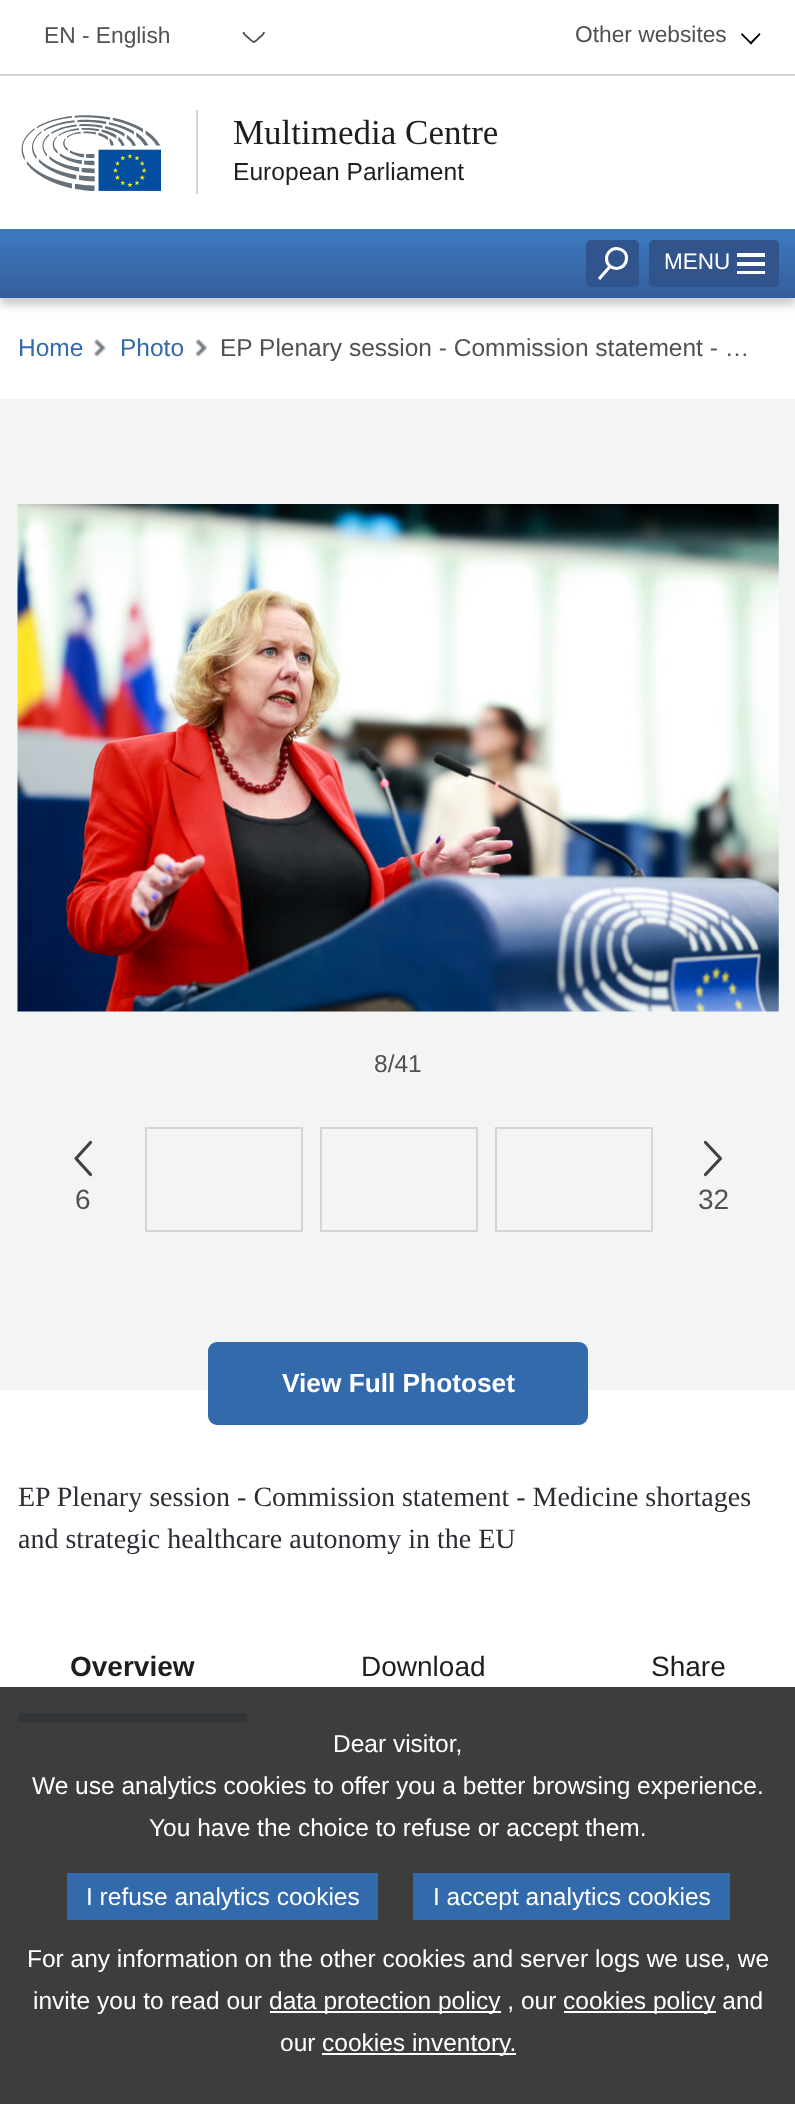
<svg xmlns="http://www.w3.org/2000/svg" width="795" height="2104">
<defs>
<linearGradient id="g1" gradientUnits="userSpaceOnUse" x1="398" y1="229" x2="398" y2="298"><stop offset="0" stop-color="#3d7ac1"/><stop offset="1" stop-color="#345e9c"/></linearGradient>
</defs>
<rect width="100%" height="100%" fill="#fff"/>
<rect y="1687" width="795" height="417" fill="#3d3d3d"/>
<rect y="74" width="795" height="2" fill="#d1d3d4"/>
<text x="44" y="43" style="font-family:Liberation Sans;font-size:22.75px;fill:#505154">EN - English</text>
<path d="M264 32c0 2.5-3.5 4.5-4.5 5.5c-6 6-5.5 6-11.5 0c-1-1-4.5-3-4.5-5.5" fill="none" stroke="#505154" stroke-width="1.8"/>
<text x="575" y="42" style="font-family:Liberation Sans;font-size:22.75px;fill:#505154">Other websites</text>
<path d="M759.5 33l1 1.5l-9.5 10l-1.5-1.5z" fill="#000"/>
<path d="M742 33l10 10l-1 1.5l-10-10z" fill="#000"/>
<image x="21" y="115" width="140" height="76" href="media/1.png"/>
<rect x="196" y="110" width="2" height="84" fill="#d1d3d4"/>
<text x="233" y="144" style="font-family:Liberation Serif;font-size:35px;fill:#1e1e1f">Multimedia Centre</text>
<text x="233" y="180" style="font-family:Liberation Sans;font-size:24.6px;fill:#1e1e1f">European Parliament</text>
<rect y="236" width="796" height="69" fill="#00000033" filter="blur(4.5px)"/>
<rect y="229" width="795" height="69" fill="url(#g1)"/>
<rect x="586" y="240" width="53" height="47" rx="5" fill="#32548d"/>
<path d="M606.5 258.5c0 13 19.5 13.5 20 0c.5-9-11-13-17-7c-2 2-3 4.5-3 7zm3.5 8l-11 12.5" fill="none" stroke="#fff" stroke-width="3.1"/>
<rect x="649" y="240" width="130" height="47" rx="5" fill="#32548d"/>
<text x="664" y="269" style="font-family:Liberation Sans;font-size:22.5px;fill:#fff">MENU</text>
<rect x="737" y="253" width="28" height="4" fill="#fff"/>
<rect x="737" y="262" width="28" height="4" fill="#fff"/>
<rect x="737" y="271" width="28" height="3" fill="#fff"/>
<text x="18" y="356" style="font-family:Liberation Sans;font-size:24.5px;fill:#326aab">Home</text>
<image x="94" y="339" width="12" height="18" href="media/2.png"/>
<text x="120" y="356" style="font-family:Liberation Sans;font-size:24.5px;fill:#326aab">Photo</text>
<image x="196" y="339" width="11" height="18" href="media/3.png"/>
<text x="220" y="356" style="font-family:Liberation Sans;font-size:24.5px;fill:#505154">EP Plenary session - Commission statement - …</text>
<rect y="399" width="795" height="991" fill="#f3f4f4"/>
<image x="17" y="504" width="762" height="508" href="media/4.png"/>
<text x="374" y="1072" style="font-family:Liberation Sans;font-size:24.5px;fill:#505154">8/41</text>
<path d="M90.5 1142.5l-14.5 16l14.5 16" fill="none" stroke="#414043" stroke-width="3.2" stroke-linecap="round" stroke-linejoin="round"/>
<text x="75" y="1209" style="font-family:Liberation Sans;font-size:28px;fill:#505154">6</text>
<rect x="146" y="1128" width="156" height="103" fill="none" stroke="#d5d5d5" stroke-width="2"/>
<rect x="321" y="1128" width="156" height="103" fill="none" stroke="#d5d5d5" stroke-width="2"/>
<rect x="496" y="1128" width="156" height="103" fill="none" stroke="#d5d5d5" stroke-width="2"/>
<path d="M705.5 1174.5l15-16l-15-16" fill="none" stroke="#414043" stroke-width="3.2" stroke-linecap="round" stroke-linejoin="round"/>
<text x="698" y="1209" style="font-family:Liberation Sans;font-size:28px;fill:#505154">32</text>
<rect x="209" y="1343" width="378" height="81" rx="8" fill="#326aab" stroke="#326aab" stroke-width="2"/>
<text x="282" y="1392" style="font-family:Liberation Sans;font-size:26.25px;font-weight:bold;fill:#fff">View Full Photoset</text>
<text x="18" y="1506" style="font-family:Liberation Serif;font-size:28px;fill:#2b2e34">EP Plenary session - Commission statement - Medicine shortages</text>
<text x="18" y="1548" style="font-family:Liberation Serif;font-size:28px;fill:#2b2e34">and strategic healthcare autonomy in the EU</text>
<text x="70" y="1676" style="font-family:Liberation Sans;font-size:28px;font-weight:bold;fill:#1e1e1f">Overview</text>
<rect x="18" y="1713" width="229" height="9" fill="#333639"/>
<text x="361" y="1676" style="font-family:Liberation Sans;font-size:28px;fill:#1e1e1f">Download</text>
<text x="651" y="1676" style="font-family:Liberation Sans;font-size:28px;fill:#1e1e1f">Share</text>
<rect x="18" y="1853" width="761" height="2" fill="#3a3a3a"/>
<text x="333" y="1752" style="font-family:Liberation Sans;font-size:24.5px;fill:#fff">Dear visitor,</text>
<text x="32" y="1794" style="font-family:Liberation Sans;font-size:24.5px;fill:#fff">We use analytics cookies to offer you a better browsing experience.</text>
<text x="149" y="1836" style="font-family:Liberation Sans;font-size:24.5px;fill:#fff">You have the choice to refuse or accept them.</text>
<rect x="67" y="1873" width="311" height="47" fill="#326aab"/>
<text x="86" y="1905" style="font-family:Liberation Sans;font-size:24.5px;fill:#fff">I refuse analytics cookies</text>
<rect x="413" y="1873" width="317" height="47" fill="#326aab"/>
<text x="433" y="1905" style="font-family:Liberation Sans;font-size:24.5px;fill:#fff">I accept analytics cookies</text>
<text x="27" y="1967" style="font-family:Liberation Sans;font-size:24.5px;fill:#fff">For any information on the other cookies and server logs we use, we</text>
<text x="33" y="2009" style="font-family:Liberation Sans;font-size:24.5px;fill:#fff">invite you to read our</text>
<rect x="270" y="2011" width="231" height="2" fill="#fff"/>
<text x="269" y="2009" style="font-family:Liberation Sans;font-size:24.5px;fill:#fff">data protection policy , our</text>
<rect x="564" y="2011" width="152" height="2" fill="#fff"/>
<text x="563" y="2009" style="font-family:Liberation Sans;font-size:24.5px;fill:#fff">cookies policy and</text>
<text x="280" y="2051" style="font-family:Liberation Sans;font-size:24.5px;fill:#fff">our</text>
<rect x="322" y="2053" width="194" height="2" fill="#fff"/>
<text x="322" y="2051" style="font-family:Liberation Sans;font-size:24.5px;fill:#fff">cookies inventory.</text>
</svg>
